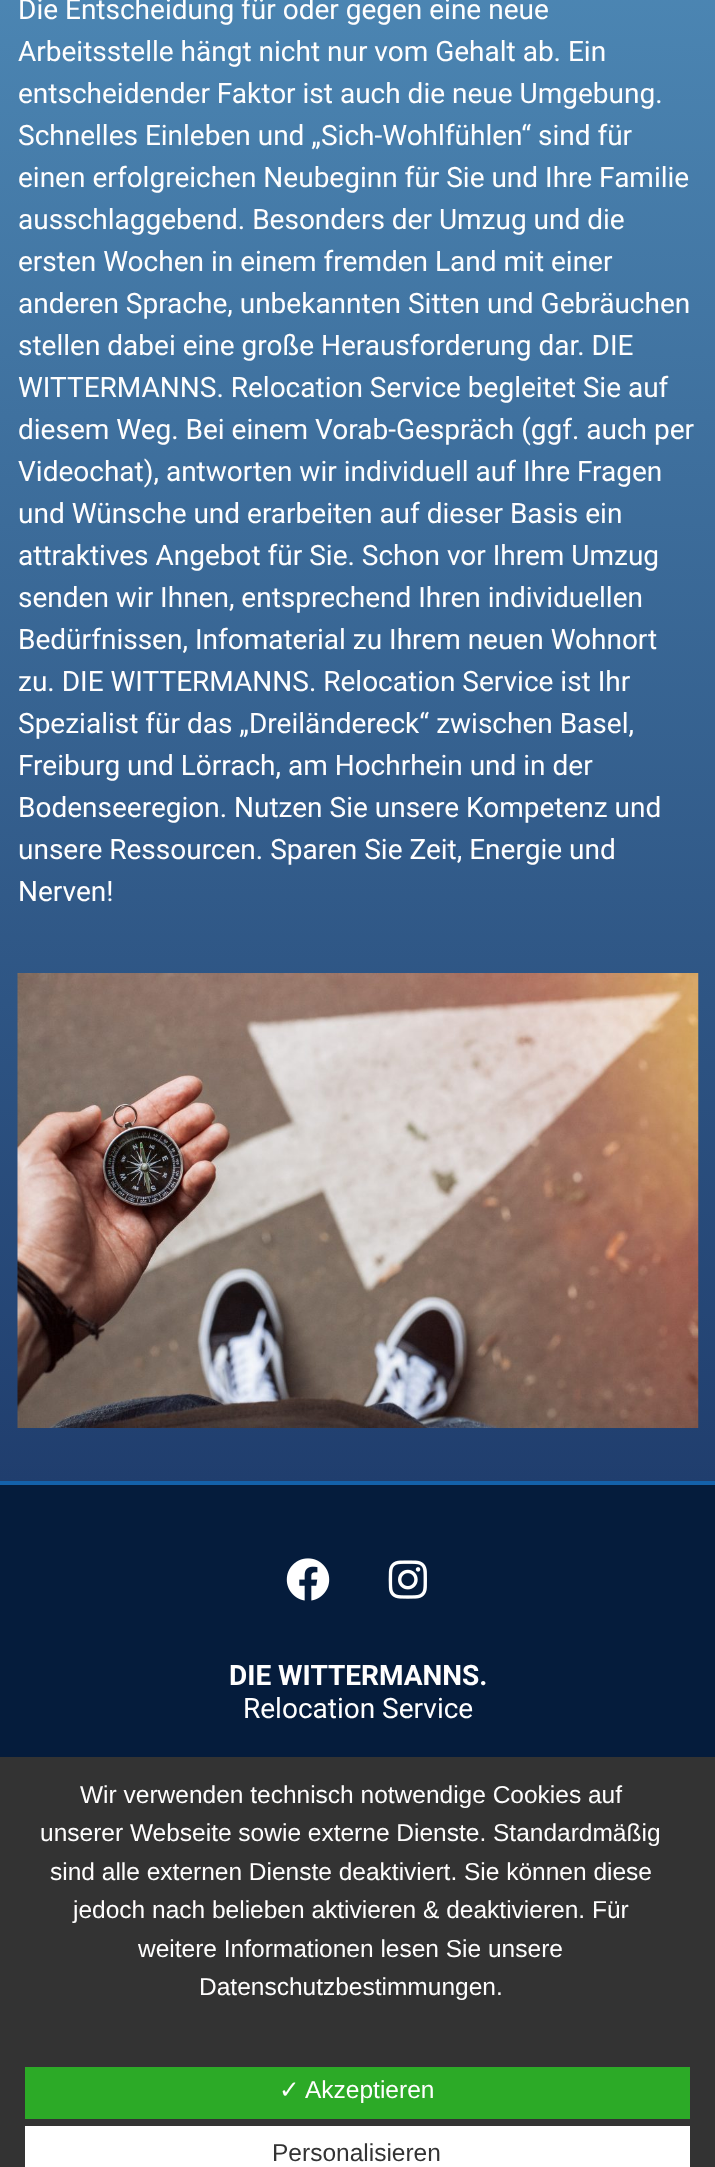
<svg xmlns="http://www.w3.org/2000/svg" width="715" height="2167">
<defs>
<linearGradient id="g1" gradientUnits="userSpaceOnUse" x1="358" y1="-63" x2="358" y2="1481"><stop offset="0" stop-color="#4d88b5"/><stop offset="1" stop-color="#203e6e"/></linearGradient>
</defs>
<rect width="100%" height="100%" fill="#fff"/>
<rect width="715" height="1481" fill="url(#g1)"/>
<text x="18" y="19" style="font-family:Roboto;font-size:28px;fill:#fffefe">Die Entscheidung für oder gegen eine neue</text>
<text x="18" y="61" style="font-family:Roboto;font-size:28px;fill:#fffefe">Arbeitsstelle hängt nicht nur vom Gehalt ab. Ein</text>
<text x="18" y="103" style="font-family:Roboto;font-size:28px;fill:#fffefe">entscheidender Faktor ist auch die neue Umgebung.</text>
<text x="18" y="145" style="font-family:Roboto;font-size:28px;fill:#fffefe">Schnelles Einleben und „Sich-Wohlfühlen“ sind für</text>
<text x="18" y="187" style="font-family:Roboto;font-size:28px;fill:#fffefe">einen erfolgreichen Neubeginn für Sie und Ihre Familie</text>
<text x="18" y="229" style="font-family:Roboto;font-size:28px;fill:#fffefe">ausschlaggebend. Besonders der Umzug und die</text>
<text x="18" y="271" style="font-family:Roboto;font-size:28px;fill:#fffefe">ersten Wochen in einem fremden Land mit einer</text>
<text x="18" y="313" style="font-family:Roboto;font-size:28px;fill:#fffefe">anderen Sprache, unbekannten Sitten und Gebräuchen</text>
<text x="18" y="355" style="font-family:Roboto;font-size:28px;fill:#fffefe">stellen dabei eine große Herausforderung dar. DIE</text>
<text x="18" y="397" style="font-family:Roboto;font-size:28px;fill:#fffefe">WITTERMANNS. Relocation Service begleitet Sie auf</text>
<text x="18" y="439" style="font-family:Roboto;font-size:28px;fill:#fffefe">diesem Weg. Bei einem Vorab-Gespräch (ggf. auch per</text>
<text x="18" y="481" style="font-family:Roboto;font-size:28px;fill:#fffefe">Videochat), antworten wir individuell auf Ihre Fragen</text>
<text x="18" y="523" style="font-family:Roboto;font-size:28px;fill:#fffefe">und Wünsche und erarbeiten auf dieser Basis ein</text>
<text x="18" y="565" style="font-family:Roboto;font-size:28px;fill:#fffefe">attraktives Angebot für Sie. Schon vor Ihrem Umzug</text>
<text x="18" y="607" style="font-family:Roboto;font-size:28px;fill:#fffefe">senden wir Ihnen, entsprechend Ihren individuellen</text>
<text x="18" y="649" style="font-family:Roboto;font-size:28px;fill:#fffefe">Bedürfnissen, Infomaterial zu Ihrem neuen Wohnort</text>
<text x="18" y="691" style="font-family:Roboto;font-size:28px;fill:#fffefe">zu. DIE WITTERMANNS. Relocation Service ist Ihr</text>
<text x="18" y="733" style="font-family:Roboto;font-size:28px;fill:#fffefe">Spezialist für das „Dreiländereck“ zwischen Basel,</text>
<text x="18" y="775" style="font-family:Roboto;font-size:28px;fill:#fffefe">Freiburg und Lörrach, am Hochrhein und in der</text>
<text x="18" y="817" style="font-family:Roboto;font-size:28px;fill:#fffefe">Bodenseeregion. Nutzen Sie unsere Kompetenz und</text>
<text x="18" y="859" style="font-family:Roboto;font-size:28px;fill:#fffefe">unsere Ressourcen. Sparen Sie Zeit, Energie und</text>
<text x="18" y="901" style="font-family:Roboto;font-size:28px;fill:#fffefe">Nerven!</text>
<image x="17" y="973" width="682" height="455" href="media/1.png"/>
<rect y="1485" width="715" height="272" fill="#051c3c"/>
<rect y="1481" width="715" height="4" fill="#1461aa"/>
<image x="286" y="1558" width="44" height="43" href="media/2.png"/>
<image x="388" y="1560" width="39" height="39" href="media/3.png"/>
<text x="229" y="1685" style="font-family:Roboto;font-size:28px;font-weight:bold;fill:#fffefe">DIE WITTERMANNS.</text>
<text x="243" y="1718" style="font-family:Roboto;font-size:28px;fill:#fffefe">Relocation Service</text>
<rect y="1757" width="715" height="410" fill="#333"/>
<text x="80" y="1803" style="font-family:Liberation Sans;font-size:24.5px;fill:#fffefe">Wir verwenden technisch notwendige Cookies auf</text>
<text x="40" y="1841" style="font-family:Liberation Sans;font-size:24.5px;fill:#fffefe">unserer Webseite sowie externe Dienste. Standardmäßig</text>
<text x="50" y="1880" style="font-family:Liberation Sans;font-size:24.5px;fill:#fffefe">sind alle externen Dienste deaktiviert. Sie können diese</text>
<text x="73" y="1918" style="font-family:Liberation Sans;font-size:24.5px;fill:#fffefe">jedoch nach belieben aktivieren &amp; deaktivieren. Für</text>
<text x="138" y="1957" style="font-family:Liberation Sans;font-size:24.5px;fill:#fffefe">weitere Informationen lesen Sie unsere</text>
<text x="199" y="1995" style="font-family:Liberation Sans;font-size:24.5px;fill:#fffefe">Datenschutzbestimmungen.</text>
<rect x="25" y="2067" width="665" height="52" fill="#2caa27"/>
<text x="279" y="2098" style="font-family:DejaVu Sans;font-size:24.5px;fill:#fffefe">✓</text>
<text x="305" y="2098" style="font-family:Liberation Sans;font-size:24.5px;fill:#fffefe">Akzeptieren</text>
<rect x="25" y="2126" width="665" height="41" fill="#fff"/>
<text x="272" y="2161" style="font-family:Liberation Sans;font-size:24.5px;fill:#333">Personalisieren</text>
</svg>
